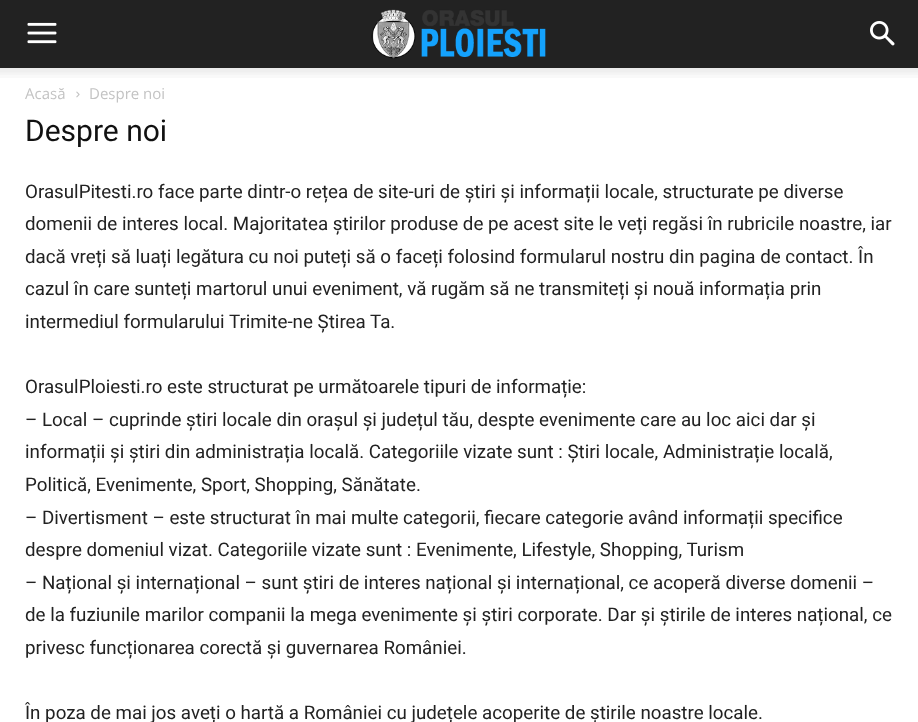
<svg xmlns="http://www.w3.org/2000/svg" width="918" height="722">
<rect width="100%" height="100%" fill="#fff"/>
<rect width="918" height="68" fill="#222"/>
<image x="27" y="22" width="30" height="22" href="media/1.png"/>
<image x="371" y="9" width="175" height="50" href="media/2.png"/>
<image x="870" y="21" width="25" height="25" href="media/3.png"/>
<image x="0" y="68" width="918" height="10" href="media/4.png"/>
<text x="25" y="99" style="font-family:Open Sans;font-size:15px;fill:#c3c3c3">Acasă</text>
<image x="76" y="91" width="4" height="7" href="media/5.png"/>
<text x="89" y="99" style="font-family:Open Sans;font-size:15px;fill:#c3c3c3">Despre noi</text>
<text x="25" y="141" style="font-family:Roboto;font-size:30px;fill:#111">Despre noi</text>
<text x="25" y="198" style="font-family:Roboto;font-size:18.75px;fill:#222">OrasulPitesti.ro face parte dintr-o rețea de site-uri de știri și informații locale, structurate pe diverse</text>
<text x="25" y="230" style="font-family:Roboto;font-size:18.75px;fill:#222">domenii de interes local. Majoritatea știrilor produse de pe acest site le veți regăsi în rubricile noastre, iar</text>
<text x="25" y="263" style="font-family:Roboto;font-size:18.75px;fill:#222">dacă vreți să luați legătura cu noi puteți să o faceți folosind formularul nostru din pagina de contact. În</text>
<text x="25" y="295" style="font-family:Roboto;font-size:18.75px;fill:#222">cazul în care sunteți martorul unui eveniment, vă rugăm să ne transmiteți și nouă informația prin</text>
<text x="25" y="328" style="font-family:Roboto;font-size:18.75px;fill:#222">intermediul formularului Trimite-ne Știrea Ta.</text>
<text x="25" y="393" style="font-family:Roboto;font-size:18.75px;fill:#222">OrasulPloiesti.ro este structurat pe următoarele tipuri de informație:</text>
<text x="25" y="426" style="font-family:Roboto;font-size:18.75px;fill:#222">– Local – cuprinde știri locale din orașul și județul tău, despte evenimente care au loc aici dar și</text>
<text x="25" y="458" style="font-family:Roboto;font-size:18.75px;fill:#222">informații și știri din administrația locală. Categoriile vizate sunt : Știri locale, Administrație locală,</text>
<text x="25" y="491" style="font-family:Roboto;font-size:18.75px;fill:#222">Politică, Evenimente, Sport, Shopping, Sănătate.</text>
<text x="25" y="524" style="font-family:Roboto;font-size:18.75px;fill:#222">– Divertisment – este structurat în mai multe categorii, fiecare categorie având informații specifice</text>
<text x="25" y="556" style="font-family:Roboto;font-size:18.75px;fill:#222">despre domeniul vizat. Categoriile vizate sunt : Evenimente, Lifestyle, Shopping, Turism</text>
<text x="25" y="589" style="font-family:Roboto;font-size:18.75px;fill:#222">– Național și internațional – sunt știri de interes național și internațional, ce acoperă diverse domenii –</text>
<text x="25" y="621" style="font-family:Roboto;font-size:18.75px;fill:#222">de la fuziunile marilor companii la mega evenimente și știri corporate. Dar și știrile de interes național, ce</text>
<text x="25" y="654" style="font-family:Roboto;font-size:18.75px;fill:#222">privesc funcționarea corectă și guvernarea României.</text>
<text x="25" y="719" style="font-family:Roboto;font-size:18.75px;fill:#222">În poza de mai jos aveți o hartă a României cu județele acoperite de știrile noastre locale.</text>
</svg>
